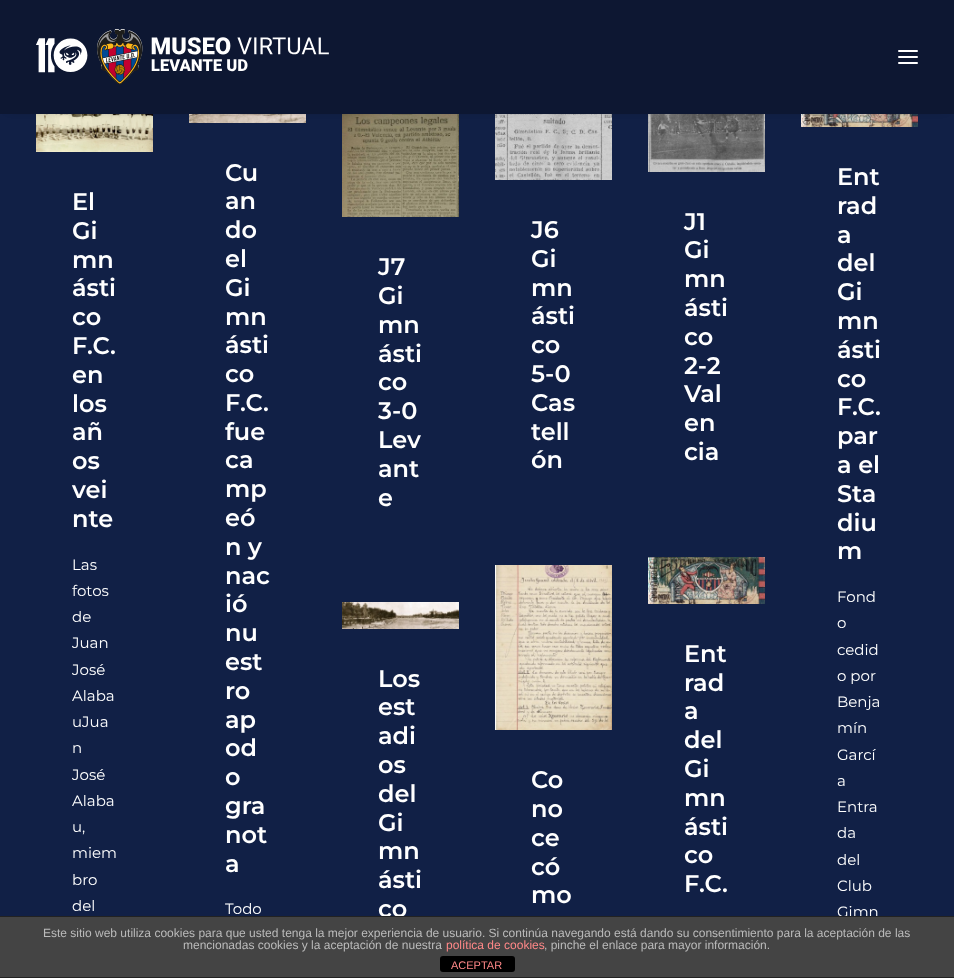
<svg xmlns="http://www.w3.org/2000/svg" width="954" height="978">
<rect width="100%" height="100%" fill="#112046"/>
<image x="36" y="114" width="117" height="38" href="media/2.png"/>
<image x="189" y="114" width="117" height="9" href="media/3.png"/>
<image x="342" y="114" width="117" height="103" href="media/4.png"/>
<image x="495" y="114" width="117" height="66" href="media/5.png"/>
<image x="648" y="114" width="117" height="58" href="media/6.png"/>
<image x="801" y="114" width="117" height="13" href="media/7.png"/>
<rect x="10" y="14" width="934" height="94" fill="#00000099" filter="blur(5px)"/>
<rect width="954" height="114" fill="#0d1732"/>
<image x="36" y="29" width="293" height="56" href="media/1.png"/>
<rect x="898" y="56" width="20" height="2" rx="1" fill="#fff"/>
<rect x="898" y="50" width="20" height="2" rx="1" fill="#fff"/>
<rect x="898" y="62" width="20" height="2" rx="1" fill="#fff"/>
<text x="72" y="210" style="font-family:Montserrat;font-size:24px;font-weight:600;fill:#fff">El</text>
<text x="72" y="239" style="font-family:Montserrat;font-size:24px;font-weight:600;fill:#fff">Gi</text>
<text x="72" y="268" style="font-family:Montserrat;font-size:24px;font-weight:600;fill:#fff">mn</text>
<text x="72" y="296" style="font-family:Montserrat;font-size:24px;font-weight:600;fill:#fff">ásti</text>
<text x="72" y="325" style="font-family:Montserrat;font-size:24px;font-weight:600;fill:#fff">co</text>
<text x="72" y="354" style="font-family:Montserrat;font-size:24px;font-weight:600;fill:#fff">F.C.</text>
<text x="72" y="383" style="font-family:Montserrat;font-size:24px;font-weight:600;fill:#fff">en</text>
<text x="72" y="412" style="font-family:Montserrat;font-size:24px;font-weight:600;fill:#fff">los</text>
<text x="72" y="440" style="font-family:Montserrat;font-size:24px;font-weight:600;fill:#fff">añ</text>
<text x="72" y="469" style="font-family:Montserrat;font-size:24px;font-weight:600;fill:#fff">os</text>
<text x="72" y="498" style="font-family:Montserrat;font-size:24px;font-weight:600;fill:#fff">vei</text>
<text x="72" y="527" style="font-family:Montserrat;font-size:24px;font-weight:600;fill:#fff">nte</text>
<text x="72" y="570" style="font-family:Montserrat;font-size:15px;fill:#fff">Las</text>
<text x="72" y="596" style="font-family:Montserrat;font-size:15px;fill:#fff">fotos</text>
<text x="72" y="622" style="font-family:Montserrat;font-size:15px;fill:#fff">de</text>
<text x="72" y="648" style="font-family:Montserrat;font-size:15px;fill:#fff">Juan</text>
<text x="72" y="675" style="font-family:Montserrat;font-size:15px;fill:#fff">José</text>
<text x="72" y="701" style="font-family:Montserrat;font-size:15px;fill:#fff">Alaba</text>
<text x="72" y="727" style="font-family:Montserrat;font-size:15px;fill:#fff">uJua</text>
<text x="72" y="753" style="font-family:Montserrat;font-size:15px;fill:#fff">n</text>
<text x="72" y="780" style="font-family:Montserrat;font-size:15px;fill:#fff">José</text>
<text x="72" y="806" style="font-family:Montserrat;font-size:15px;fill:#fff">Alaba</text>
<text x="72" y="832" style="font-family:Montserrat;font-size:15px;fill:#fff">u,</text>
<text x="72" y="858" style="font-family:Montserrat;font-size:15px;fill:#fff">miem</text>
<text x="72" y="885" style="font-family:Montserrat;font-size:15px;fill:#fff">bro</text>
<text x="72" y="911" style="font-family:Montserrat;font-size:15px;fill:#fff">del</text>
<text x="225" y="181" style="font-family:Montserrat;font-size:24px;font-weight:600;fill:#fff">Cu</text>
<text x="225" y="209" style="font-family:Montserrat;font-size:24px;font-weight:600;fill:#fff">an</text>
<text x="225" y="238" style="font-family:Montserrat;font-size:24px;font-weight:600;fill:#fff">do</text>
<text x="225" y="267" style="font-family:Montserrat;font-size:24px;font-weight:600;fill:#fff">el</text>
<text x="225" y="296" style="font-family:Montserrat;font-size:24px;font-weight:600;fill:#fff">Gi</text>
<text x="225" y="325" style="font-family:Montserrat;font-size:24px;font-weight:600;fill:#fff">mn</text>
<text x="225" y="353" style="font-family:Montserrat;font-size:24px;font-weight:600;fill:#fff">ásti</text>
<text x="225" y="382" style="font-family:Montserrat;font-size:24px;font-weight:600;fill:#fff">co</text>
<text x="225" y="411" style="font-family:Montserrat;font-size:24px;font-weight:600;fill:#fff">F.C.</text>
<text x="225" y="440" style="font-family:Montserrat;font-size:24px;font-weight:600;fill:#fff">fue</text>
<text x="225" y="468" style="font-family:Montserrat;font-size:24px;font-weight:600;fill:#fff">ca</text>
<text x="225" y="497" style="font-family:Montserrat;font-size:24px;font-weight:600;fill:#fff">mp</text>
<text x="225" y="526" style="font-family:Montserrat;font-size:24px;font-weight:600;fill:#fff">eó</text>
<text x="225" y="555" style="font-family:Montserrat;font-size:24px;font-weight:600;fill:#fff">n y</text>
<text x="225" y="584" style="font-family:Montserrat;font-size:24px;font-weight:600;fill:#fff">nac</text>
<text x="225" y="612" style="font-family:Montserrat;font-size:24px;font-weight:600;fill:#fff">ió</text>
<text x="225" y="641" style="font-family:Montserrat;font-size:24px;font-weight:600;fill:#fff">nu</text>
<text x="225" y="670" style="font-family:Montserrat;font-size:24px;font-weight:600;fill:#fff">est</text>
<text x="225" y="699" style="font-family:Montserrat;font-size:24px;font-weight:600;fill:#fff">ro</text>
<text x="225" y="728" style="font-family:Montserrat;font-size:24px;font-weight:600;fill:#fff">ap</text>
<text x="225" y="756" style="font-family:Montserrat;font-size:24px;font-weight:600;fill:#fff">od</text>
<text x="225" y="785" style="font-family:Montserrat;font-size:24px;font-weight:600;fill:#fff">o</text>
<text x="225" y="814" style="font-family:Montserrat;font-size:24px;font-weight:600;fill:#fff">gra</text>
<text x="225" y="843" style="font-family:Montserrat;font-size:24px;font-weight:600;fill:#fff">not</text>
<text x="225" y="872" style="font-family:Montserrat;font-size:24px;font-weight:600;fill:#fff">a</text>
<text x="225" y="914" style="font-family:Montserrat;font-size:15px;fill:#fff">Todo</text>
<text x="378" y="275" style="font-family:Montserrat;font-size:24px;font-weight:600;fill:#fff">J7</text>
<text x="378" y="304" style="font-family:Montserrat;font-size:24px;font-weight:600;fill:#fff">Gi</text>
<text x="378" y="333" style="font-family:Montserrat;font-size:24px;font-weight:600;fill:#fff">mn</text>
<text x="378" y="362" style="font-family:Montserrat;font-size:24px;font-weight:600;fill:#fff">ásti</text>
<text x="378" y="390" style="font-family:Montserrat;font-size:24px;font-weight:600;fill:#fff">co</text>
<text x="378" y="419" style="font-family:Montserrat;font-size:24px;font-weight:600;fill:#fff">3-0</text>
<text x="378" y="448" style="font-family:Montserrat;font-size:24px;font-weight:600;fill:#fff">Lev</text>
<text x="378" y="477" style="font-family:Montserrat;font-size:24px;font-weight:600;fill:#fff">ant</text>
<text x="378" y="506" style="font-family:Montserrat;font-size:24px;font-weight:600;fill:#fff">e</text>
<text x="531" y="238" style="font-family:Montserrat;font-size:24px;font-weight:600;fill:#fff">J6</text>
<text x="531" y="267" style="font-family:Montserrat;font-size:24px;font-weight:600;fill:#fff">Gi</text>
<text x="531" y="296" style="font-family:Montserrat;font-size:24px;font-weight:600;fill:#fff">mn</text>
<text x="531" y="324" style="font-family:Montserrat;font-size:24px;font-weight:600;fill:#fff">ásti</text>
<text x="531" y="353" style="font-family:Montserrat;font-size:24px;font-weight:600;fill:#fff">co</text>
<text x="531" y="382" style="font-family:Montserrat;font-size:24px;font-weight:600;fill:#fff">5-0</text>
<text x="531" y="411" style="font-family:Montserrat;font-size:24px;font-weight:600;fill:#fff">Cas</text>
<text x="531" y="440" style="font-family:Montserrat;font-size:24px;font-weight:600;fill:#fff">tell</text>
<text x="531" y="468" style="font-family:Montserrat;font-size:24px;font-weight:600;fill:#fff">ón</text>
<text x="684" y="230" style="font-family:Montserrat;font-size:24px;font-weight:600;fill:#fff">J1</text>
<text x="684" y="258" style="font-family:Montserrat;font-size:24px;font-weight:600;fill:#fff">Gi</text>
<text x="684" y="287" style="font-family:Montserrat;font-size:24px;font-weight:600;fill:#fff">mn</text>
<text x="684" y="316" style="font-family:Montserrat;font-size:24px;font-weight:600;fill:#fff">ásti</text>
<text x="684" y="345" style="font-family:Montserrat;font-size:24px;font-weight:600;fill:#fff">co</text>
<text x="684" y="374" style="font-family:Montserrat;font-size:24px;font-weight:600;fill:#fff">2-2</text>
<text x="684" y="402" style="font-family:Montserrat;font-size:24px;font-weight:600;fill:#fff">Val</text>
<text x="684" y="431" style="font-family:Montserrat;font-size:24px;font-weight:600;fill:#fff">en</text>
<text x="684" y="460" style="font-family:Montserrat;font-size:24px;font-weight:600;fill:#fff">cia</text>
<text x="837" y="185" style="font-family:Montserrat;font-size:24px;font-weight:600;fill:#fff">Ent</text>
<text x="837" y="214" style="font-family:Montserrat;font-size:24px;font-weight:600;fill:#fff">rad</text>
<text x="837" y="243" style="font-family:Montserrat;font-size:24px;font-weight:600;fill:#fff">a</text>
<text x="837" y="271" style="font-family:Montserrat;font-size:24px;font-weight:600;fill:#fff">del</text>
<text x="837" y="300" style="font-family:Montserrat;font-size:24px;font-weight:600;fill:#fff">Gi</text>
<text x="837" y="329" style="font-family:Montserrat;font-size:24px;font-weight:600;fill:#fff">mn</text>
<text x="837" y="358" style="font-family:Montserrat;font-size:24px;font-weight:600;fill:#fff">ásti</text>
<text x="837" y="387" style="font-family:Montserrat;font-size:24px;font-weight:600;fill:#fff">co</text>
<text x="837" y="415" style="font-family:Montserrat;font-size:24px;font-weight:600;fill:#fff">F.C.</text>
<text x="837" y="444" style="font-family:Montserrat;font-size:24px;font-weight:600;fill:#fff">par</text>
<text x="837" y="473" style="font-family:Montserrat;font-size:24px;font-weight:600;fill:#fff">a el</text>
<text x="837" y="502" style="font-family:Montserrat;font-size:24px;font-weight:600;fill:#fff">Sta</text>
<text x="837" y="531" style="font-family:Montserrat;font-size:24px;font-weight:600;fill:#fff">diu</text>
<text x="837" y="559" style="font-family:Montserrat;font-size:24px;font-weight:600;fill:#fff">m</text>
<text x="837" y="602" style="font-family:Montserrat;font-size:15px;fill:#fff">Fond</text>
<text x="837" y="628" style="font-family:Montserrat;font-size:15px;fill:#fff">o</text>
<text x="837" y="655" style="font-family:Montserrat;font-size:15px;fill:#fff">cedid</text>
<text x="837" y="681" style="font-family:Montserrat;font-size:15px;fill:#fff">o por</text>
<text x="837" y="707" style="font-family:Montserrat;font-size:15px;fill:#fff">Benja</text>
<text x="837" y="733" style="font-family:Montserrat;font-size:15px;fill:#fff">mín</text>
<text x="837" y="760" style="font-family:Montserrat;font-size:15px;fill:#fff">Garcí</text>
<text x="837" y="786" style="font-family:Montserrat;font-size:15px;fill:#fff">a</text>
<text x="837" y="812" style="font-family:Montserrat;font-size:15px;fill:#fff">Entra</text>
<text x="837" y="838" style="font-family:Montserrat;font-size:15px;fill:#fff">da</text>
<text x="837" y="865" style="font-family:Montserrat;font-size:15px;fill:#fff">del</text>
<text x="837" y="891" style="font-family:Montserrat;font-size:15px;fill:#fff">Club</text>
<text x="837" y="917" style="font-family:Montserrat;font-size:15px;fill:#fff">Gimn</text>
<image x="342" y="602" width="117" height="27" href="media/8.png"/>
<text x="378" y="687" style="font-family:Montserrat;font-size:24px;font-weight:600;fill:#fff">Los</text>
<text x="378" y="715" style="font-family:Montserrat;font-size:24px;font-weight:600;fill:#fff">est</text>
<text x="378" y="744" style="font-family:Montserrat;font-size:24px;font-weight:600;fill:#fff">adi</text>
<text x="378" y="773" style="font-family:Montserrat;font-size:24px;font-weight:600;fill:#fff">os</text>
<text x="378" y="802" style="font-family:Montserrat;font-size:24px;font-weight:600;fill:#fff">del</text>
<text x="378" y="831" style="font-family:Montserrat;font-size:24px;font-weight:600;fill:#fff">Gi</text>
<text x="378" y="859" style="font-family:Montserrat;font-size:24px;font-weight:600;fill:#fff">mn</text>
<text x="378" y="888" style="font-family:Montserrat;font-size:24px;font-weight:600;fill:#fff">ásti</text>
<text x="378" y="917" style="font-family:Montserrat;font-size:24px;font-weight:600;fill:#fff">co</text>
<image x="495" y="565" width="117" height="165" href="media/9.png"/>
<text x="531" y="788" style="font-family:Montserrat;font-size:24px;font-weight:600;fill:#fff">Co</text>
<text x="531" y="817" style="font-family:Montserrat;font-size:24px;font-weight:600;fill:#fff">no</text>
<text x="531" y="846" style="font-family:Montserrat;font-size:24px;font-weight:600;fill:#fff">ce</text>
<text x="531" y="875" style="font-family:Montserrat;font-size:24px;font-weight:600;fill:#fff">có</text>
<text x="531" y="903" style="font-family:Montserrat;font-size:24px;font-weight:600;fill:#fff">mo</text>
<image x="648" y="557" width="117" height="47" href="media/10.png"/>
<text x="684" y="662" style="font-family:Montserrat;font-size:24px;font-weight:600;fill:#fff">Ent</text>
<text x="684" y="691" style="font-family:Montserrat;font-size:24px;font-weight:600;fill:#fff">rad</text>
<text x="684" y="719" style="font-family:Montserrat;font-size:24px;font-weight:600;fill:#fff">a</text>
<text x="684" y="748" style="font-family:Montserrat;font-size:24px;font-weight:600;fill:#fff">del</text>
<text x="684" y="777" style="font-family:Montserrat;font-size:24px;font-weight:600;fill:#fff">Gi</text>
<text x="684" y="806" style="font-family:Montserrat;font-size:24px;font-weight:600;fill:#fff">mn</text>
<text x="684" y="835" style="font-family:Montserrat;font-size:24px;font-weight:600;fill:#fff">ásti</text>
<text x="684" y="863" style="font-family:Montserrat;font-size:24px;font-weight:600;fill:#fff">co</text>
<text x="684" y="892" style="font-family:Montserrat;font-size:24px;font-weight:600;fill:#fff">F.C.</text>
<rect y="917" width="954" height="60" fill="#444"/>
<rect y="916" width="954" height="1" fill="#222"/>
<rect y="977" width="954" height="1" fill="#222"/>
<text x="43" y="937" style="font-family:Liberation Sans;font-size:12px;fill:#bbb">Este sitio web utiliza cookies para que usted tenga la mejor experiencia de usuario. Si continúa navegando está dando su consentimiento para la aceptación de las</text>
<text x="183" y="949" style="font-family:Liberation Sans;font-size:12px;fill:#bbb">mencionadas cookies y la aceptación de nuestra</text>
<text x="446" y="949" style="font-family:Liberation Sans;font-size:12px;fill:#f88">política de cookies</text>
<text x="544" y="949" style="font-family:Liberation Sans;font-size:12px;fill:#bbb">, pinche el enlace para mayor información.</text>
<rect x="440" y="956" width="75" height="16" rx="3" fill="#000"/>
<text x="451" y="969" style="font-family:Liberation Sans;font-size:11px;fill:#f88">ACEPTAR</text>
</svg>
